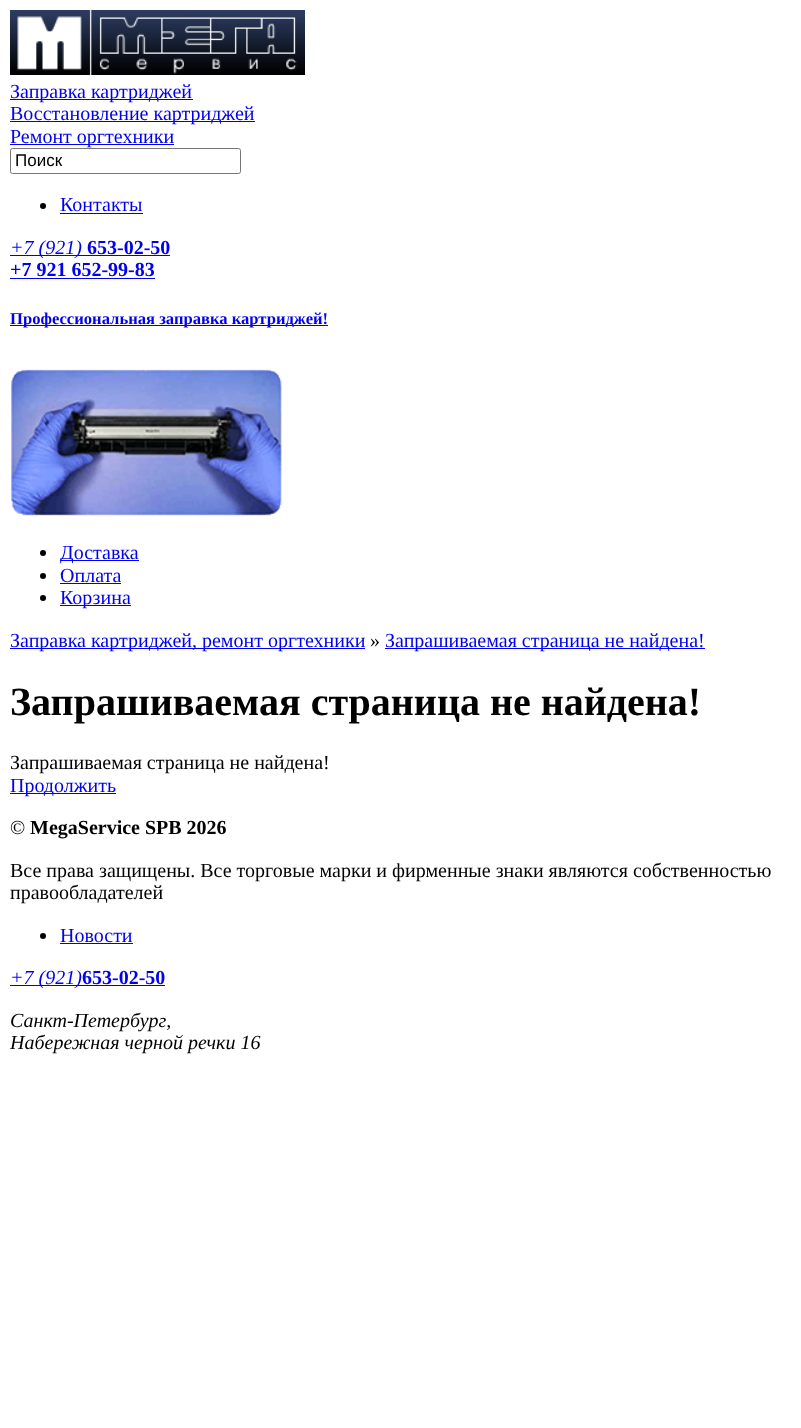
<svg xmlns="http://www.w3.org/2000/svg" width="801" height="1428">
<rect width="100%" height="100%" fill="#fff"/>
<image x="10" y="10" width="295" height="65" href="media/1.png"/>
<rect x="10" y="99" width="183" height="1" fill="#00e"/>
<text x="10" y="98" style="font-family:Liberation Serif;font-size:20px;fill:#00e">Заправка картриджей</text>
<rect x="10" y="121" width="245" height="1" fill="#00e"/>
<text x="10" y="120" style="font-family:Liberation Serif;font-size:20px;fill:#00e">Восстановление картриджей</text>
<rect x="10" y="144" width="164" height="1" fill="#00e"/>
<text x="10" y="143" style="font-family:Liberation Serif;font-size:20px;fill:#00e">Ремонт оргтехники</text>
<rect x="10.5" y="148.5" width="230" height="25" rx="2" fill="none" stroke="#767676"/>
<text x="15" y="166" style="font-family:Liberation Sans;font-size:17px;fill:#000">Поиск</text>
<circle cx="43" cy="206" r="3" fill="#000"/>
<text x="60" y="211" style="font-family:Liberation Serif;font-size:20px;fill:#00e">Контакты</text>
<rect x="60" y="213" width="83" height="1" fill="#00e"/>
<rect x="10" y="255" width="71" height="1" fill="#00e"/>
<text x="10" y="254" style="font-family:Liberation Serif;font-size:20px;font-style:italic;fill:#00e">+7 (921)</text>
<rect x="81" y="255" width="89" height="1" fill="#00e"/>
<text x="87" y="254" style="font-family:Liberation Serif;font-size:20px;font-weight:bold;fill:#00e">653-02-50</text>
<text x="10" y="276" style="font-family:Liberation Serif;font-size:20px;font-weight:bold;fill:#00e">+7 921 652-99-83</text>
<rect x="10" y="278" width="145" height="1" fill="#00e"/>
<rect x="10" y="325" width="318" height="1" fill="#00e"/>
<text x="10" y="324" style="font-family:Liberation Serif;font-size:16.6px;font-weight:bold;fill:#00e">Профессиональная заправка картриджей!</text>
<image x="11" y="369" width="271" height="147" href="media/2.png"/>
<circle cx="43" cy="553" r="3" fill="#000"/>
<rect x="60" y="560" width="79" height="1" fill="#00e"/>
<text x="60" y="559" style="font-family:Liberation Serif;font-size:20px;fill:#00e">Доставка</text>
<circle cx="43" cy="576" r="3" fill="#000"/>
<text x="60" y="582" style="font-family:Liberation Serif;font-size:20px;fill:#00e">Оплата</text>
<rect x="60" y="583" width="61" height="1" fill="#00e"/>
<circle cx="43" cy="598" r="3" fill="#000"/>
<rect x="60" y="605" width="71" height="1" fill="#00e"/>
<text x="60" y="604" style="font-family:Liberation Serif;font-size:20px;fill:#00e">Корзина</text>
<rect x="10" y="648" width="355" height="1" fill="#00e"/>
<text x="10" y="647" style="font-family:Liberation Serif;font-size:20px;fill:#00e">Заправка картриджей, ремонт оргтехники</text>
<text x="370" y="647" style="font-family:Liberation Serif;font-size:20px;fill:#000">»</text>
<rect x="385" y="648" width="320" height="1" fill="#00e"/>
<text x="385" y="647" style="font-family:Liberation Serif;font-size:20px;fill:#00e">Запрашиваемая страница не найдена!</text>
<text x="10" y="715" style="font-family:Liberation Serif;font-size:40px;font-weight:bold;fill:#000">Запрашиваемая страница не найдена!</text>
<text x="10" y="769" style="font-family:Liberation Serif;font-size:20px;fill:#000">Запрашиваемая страница не найдена!</text>
<rect x="10" y="793" width="106" height="1" fill="#00e"/>
<text x="10" y="792" style="font-family:Liberation Serif;font-size:20px;fill:#00e">Продолжить</text>
<text x="10" y="834" style="font-family:Liberation Serif;font-size:20px;fill:#000">©</text>
<text x="30" y="834" style="font-family:Liberation Serif;font-size:20px;font-weight:bold;fill:#000">MegaService SPB 2026</text>
<text x="10" y="877" style="font-family:Liberation Serif;font-size:20px;fill:#000">Все права защищены. Все торговые марки и фирменные знаки являются собственностью</text>
<text x="10" y="899" style="font-family:Liberation Serif;font-size:20px;fill:#000">правообладателей</text>
<circle cx="43" cy="936" r="3" fill="#000"/>
<text x="60" y="942" style="font-family:Liberation Serif;font-size:20px;fill:#00e">Новости</text>
<rect x="60" y="943" width="73" height="1" fill="#00e"/>
<rect x="10" y="985" width="71" height="1" fill="#00e"/>
<text x="10" y="984" style="font-family:Liberation Serif;font-size:20px;font-style:italic;fill:#00e">+7 (921)</text>
<rect x="81" y="985" width="84" height="1" fill="#00e"/>
<text x="82" y="984" style="font-family:Liberation Serif;font-size:20px;font-weight:bold;fill:#00e">653-02-50</text>
<text x="10" y="1027" style="font-family:Liberation Serif;font-size:20px;font-style:italic;fill:#000">Санкт-Петербург,</text>
<text x="10" y="1049" style="font-family:Liberation Serif;font-size:20px;font-style:italic;fill:#000">Набережная черной речки 16</text>
</svg>
